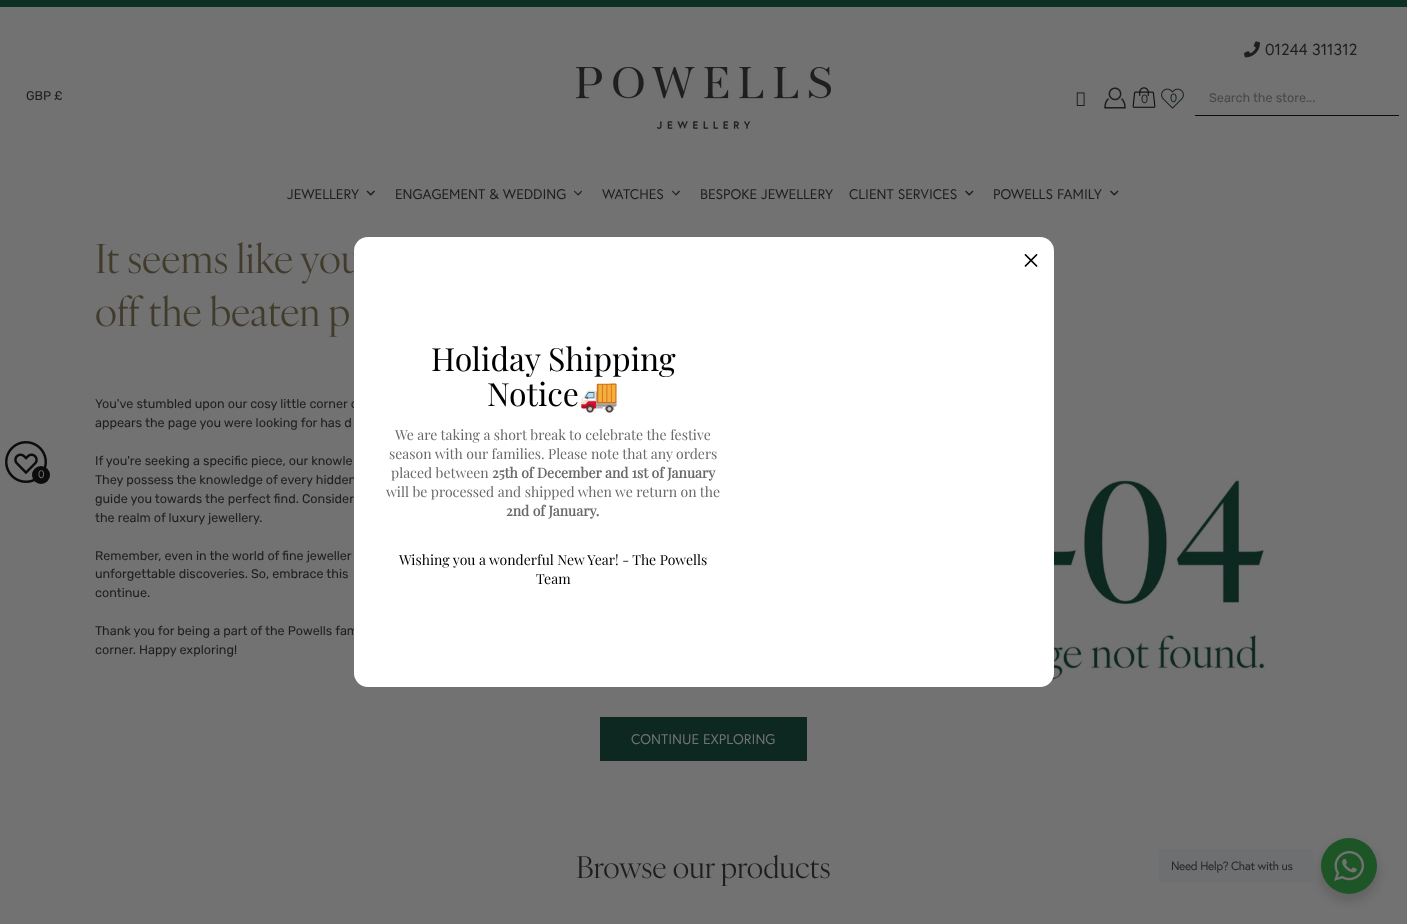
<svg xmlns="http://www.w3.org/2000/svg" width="1407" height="924">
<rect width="100%" height="100%" fill="#727272"/>
<rect width="1407" height="7" fill="#0c3024"/>
<image x="1244" y="41" width="16" height="17" href="media/1.png"/>
<text x="1265" y="55" style="font-family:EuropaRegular;font-size:16px;fill:#1e1e1e">01244 311312</text>
<image x="1076" y="92" width="9" height="14" href="media/2.png"/>
<image x="1104" y="87" width="22" height="22" href="media/3.png"/>
<image x="1132" y="87" width="24" height="21" href="media/4.png"/>
<text x="1141" y="103" style="font-family:EuropaRegular;font-size:12px;fill:#1e1e1e">0</text>
<image x="1161" y="88" width="23" height="21" href="media/5.png"/>
<text x="1170" y="102" style="font-family:EuropaRegular;font-size:12px;fill:#0c2820">0</text>
<rect x="1195" y="115" width="204" height="1" fill="#0c0c0c"/>
<text x="1209" y="102" style="font-family:Rubik;font-size:12.6px;fill:#484848">Search the store...</text>
<text x="287" y="199" style="font-family:EuropaRegular;font-size:14px;fill:#1e1e1e">JEWELLERY</text>
<path d="M374 190.5l1 1l-4 4l-1-1z" fill="#1e1e1e"/>
<path d="M367.5 190.5l4 4l-1 1l-4-4z" fill="#1e1e1e"/>
<text x="395" y="199" style="font-family:EuropaRegular;font-size:14px;fill:#1e1e1e">ENGAGEMENT &amp; WEDDING</text>
<path d="M581.5 190.5l.5 1l-3.5 4l-1-1z" fill="#1e1e1e"/>
<path d="M574.5 190.5l4 4l-.5 1l-4-4z" fill="#1e1e1e"/>
<text x="602" y="199" style="font-family:EuropaRegular;font-size:14px;fill:#1e1e1e">WATCHES</text>
<path d="M679 190.5l1 1l-4 4l-.5-1z" fill="#1e1e1e"/>
<path d="M672.5 190.5l4 4l-.5 1l-4-4z" fill="#1e1e1e"/>
<text x="700" y="199" style="font-family:EuropaRegular;font-size:14px;fill:#1e1e1e">BESPOKE JEWELLERY</text>
<text x="849" y="199" style="font-family:EuropaRegular;font-size:14px;fill:#1e1e1e">CLIENT SERVICES</text>
<path d="M972.5 190.5l1 1l-4 4l-1-1z" fill="#1e1e1e"/>
<path d="M966 190.5l4 4l-1 1l-4-4z" fill="#1e1e1e"/>
<text x="993" y="199" style="font-family:EuropaRegular;font-size:14px;fill:#1e1e1e">POWELLS FAMILY</text>
<path d="M1117.5 190.5l1 1l-4 4l-1-1z" fill="#1e1e1e"/>
<path d="M1111 190.5l4 4l-1 1l-4-4z" fill="#1e1e1e"/>
<text x="26" y="100" style="font-family:Rubik;font-size:12.6px;fill:#1e1e1e">GBP £</text>
<image x="576" y="67" width="255" height="62" href="media/6.png"/>
<text x="95" y="273" style="font-family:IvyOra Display;font-size:40px;fill:#413b2b">It seems like you</text>
<text x="95" y="326" style="font-family:IvyOra Display;font-size:40px;fill:#413b2b">off the beaten p</text>
<text x="95" y="408" style="font-family:Rubik;font-size:12.6px;fill:#1e1e1e">You've stumbled upon our cosy little corner o</text>
<text x="95" y="427" style="font-family:Rubik;font-size:12.6px;fill:#1e1e1e">appears the page you were looking for has d</text>
<text x="95" y="465" style="font-family:Rubik;font-size:12.6px;fill:#1e1e1e">If you're seeking a specific piece, our knowle</text>
<text x="95" y="484" style="font-family:Rubik;font-size:12.6px;fill:#1e1e1e">They possess the knowledge of every hidden</text>
<text x="95" y="503" style="font-family:Rubik;font-size:12.6px;fill:#1e1e1e">guide you towards the perfect find. Consider</text>
<text x="95" y="522" style="font-family:Rubik;font-size:12.6px;fill:#1e1e1e">the realm of luxury jewellery.</text>
<text x="95" y="560" style="font-family:Rubik;font-size:12.6px;fill:#1e1e1e">Remember, even in the world of fine jeweller</text>
<text x="95" y="578" style="font-family:Rubik;font-size:12.6px;fill:#1e1e1e">unforgettable discoveries. So, embrace this</text>
<text x="95" y="597" style="font-family:Rubik;font-size:12.6px;fill:#1e1e1e">continue.</text>
<text x="95" y="635" style="font-family:Rubik;font-size:12.6px;fill:#1e1e1e">Thank you for being a part of the Powells fam</text>
<text x="95" y="654" style="font-family:Rubik;font-size:12.6px;fill:#1e1e1e">corner. Happy exploring!</text>
<image x="1052" y="478" width="213" height="202" href="media/7.png"/>
<rect x="600" y="717" width="207" height="44" fill="#0c2820"/>
<text x="631" y="744" style="font-family:EuropaRegular;font-size:14px;fill:#727272">CONTINUE EXPLORING</text>
<text x="576" y="878" style="font-family:IvyOra Display;font-size:30px;fill:#1e1e1e">Browse our products</text>
<image x="5" y="441" width="42" height="42" href="media/8.png"/>
<circle cx="41" cy="475" r="9" fill="#0c0c0c"/>
<text x="38" y="478" style="font-family:EuropaRegular;font-size:11px;fill:#727272">0</text>
<rect x="354" y="237" width="700" height="450" rx="14" fill="#fff"/>
<image x="1024" y="254" width="14" height="13" href="media/9.png"/>
<text x="431" y="371" style="font-family:Playfair Display;font-size:32px;fill:#000">Holiday Shipping</text>
<text x="487" y="406" style="font-family:Playfair Display;font-size:32px;fill:#000">Notice</text>
<text x="579" y="406" style="font-family:Noto Color Emoji;font-size:32px;fill:#000">🚚</text>
<text x="395" y="440" style="font-family:Playfair Display;font-size:14px;fill:#696969">We are taking a short break to celebrate the festive</text>
<text x="389" y="459" style="font-family:Playfair Display;font-size:14px;fill:#696969">season with our families. Please note that any orders</text>
<text x="391" y="478" style="font-family:Playfair Display;font-size:14px;fill:#696969">placed between</text>
<text x="492" y="478" style="font-family:Playfair Display;font-size:14px;font-weight:bold;fill:#696969">25th of December and 1st of January</text>
<text x="386" y="497" style="font-family:Playfair Display;font-size:14px;fill:#696969">will be processed and shipped when we return on the</text>
<text x="506" y="516" style="font-family:Playfair Display;font-size:14px;font-weight:bold;fill:#696969">2nd of January.</text>
<text x="399" y="565" style="font-family:Playfair Display;font-size:14px;fill:#000">Wishing you a wonderful New Year! - The Powells</text>
<text x="536" y="584" style="font-family:Playfair Display;font-size:14px;fill:#000">Team</text>
<rect x="1319" y="842" width="60" height="60" rx="30" fill="#0c0c0c24" filter="blur(4px)"/>
<rect x="1159" y="849" width="155" height="34" rx="4" fill="#6e6f70"/>
<text x="1171" y="870" style="font-family:EuropaRegular;font-size:12px;letter-spacing:-0.4px;fill:#27282b">Need Help? Chat with us</text>
<circle cx="1349" cy="866" r="28" fill="#1e5526"/>
<image x="1334" y="851" width="30" height="30" href="media/10.png"/>
</svg>
